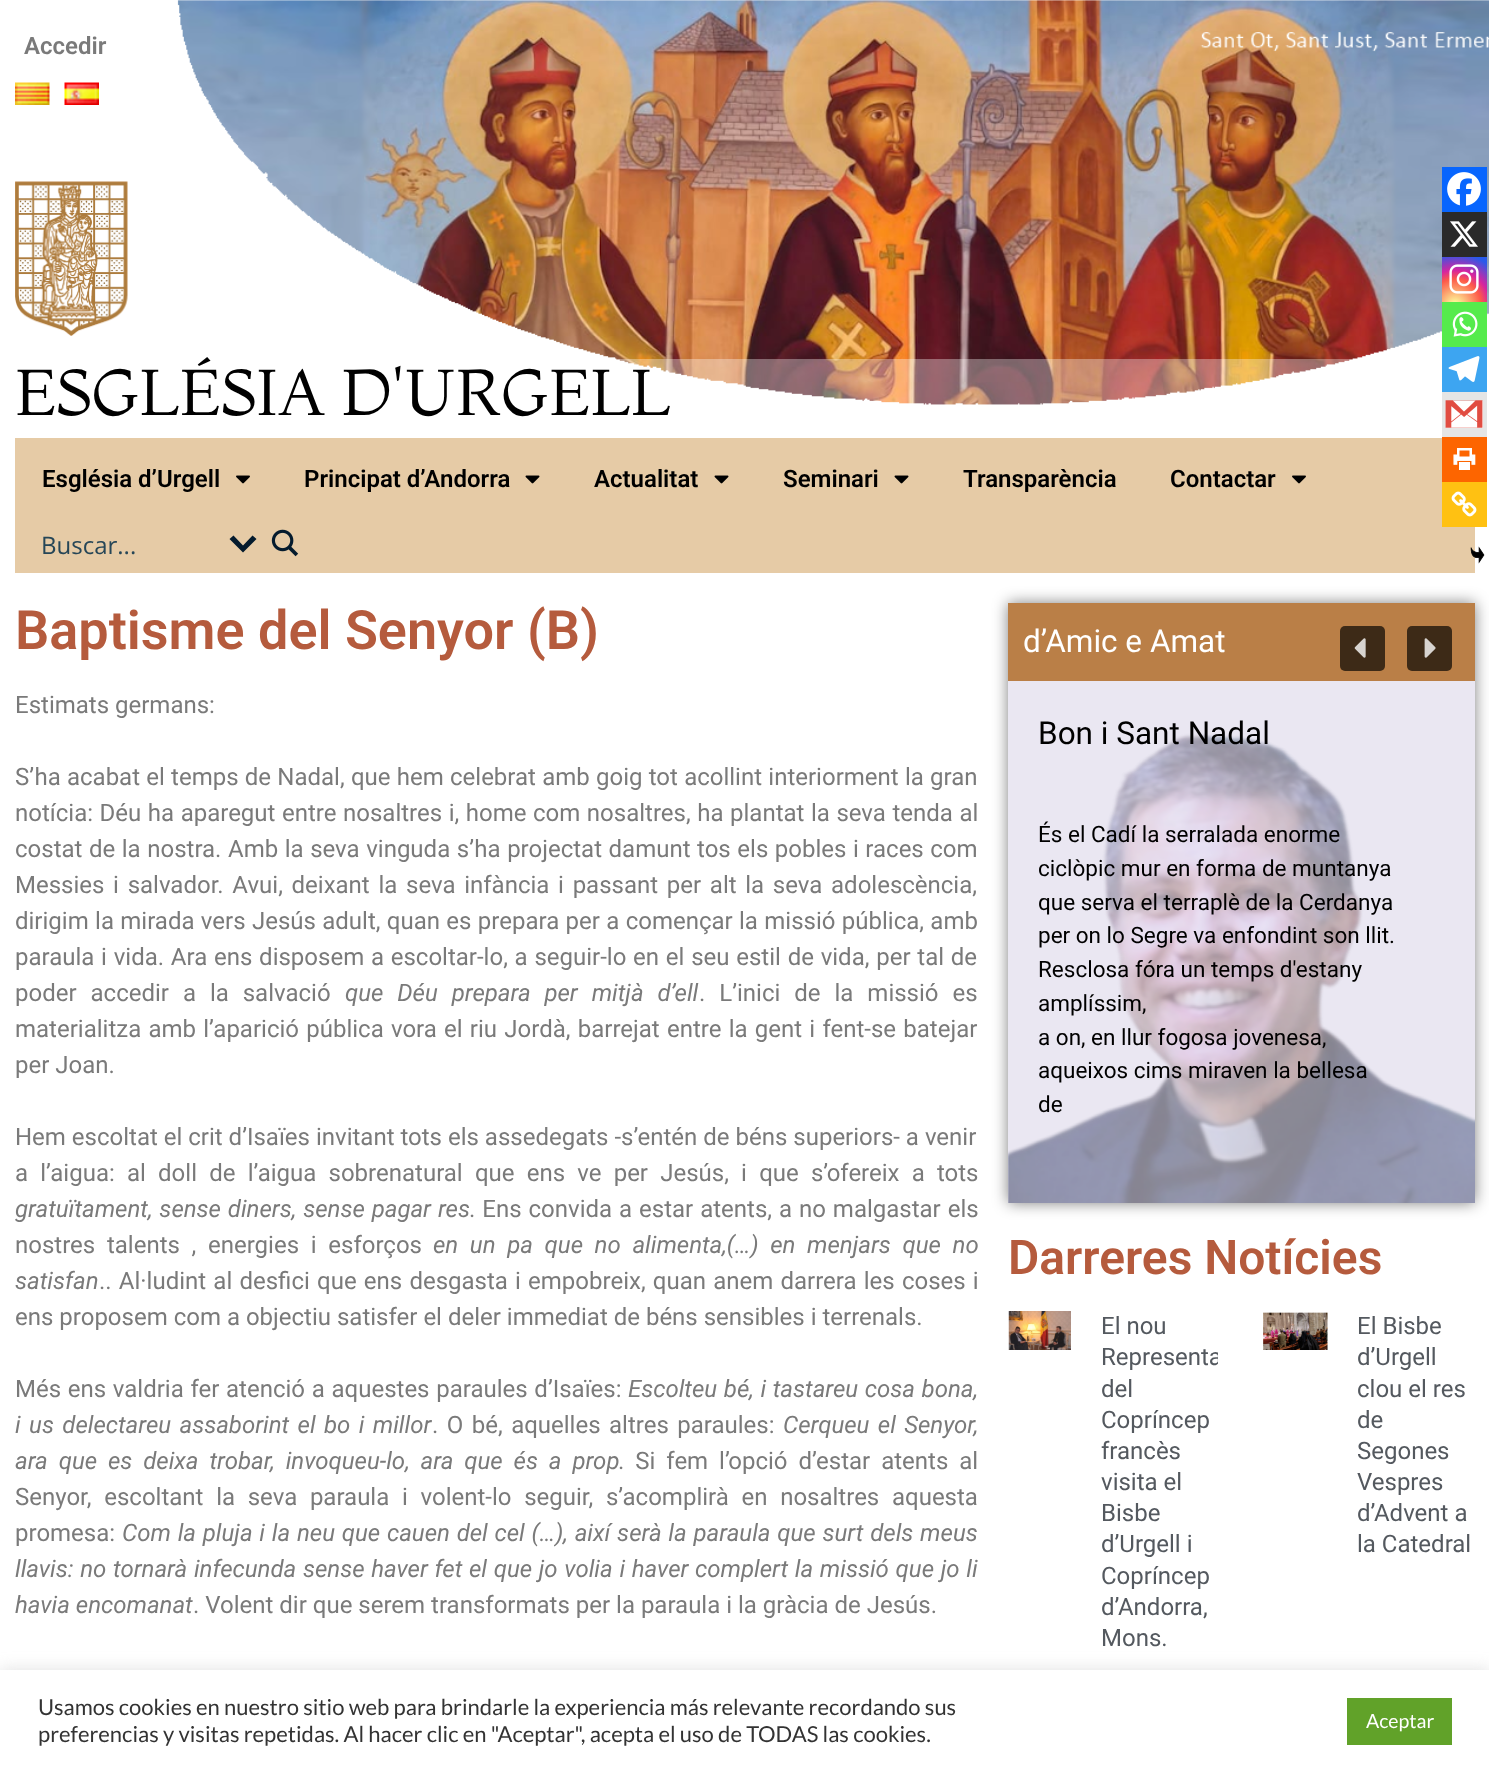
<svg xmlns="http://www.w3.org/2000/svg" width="1489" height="1773">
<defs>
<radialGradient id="g1" gradientUnits="userSpaceOnUse" cx="1455" cy="305" r="58"><stop offset="0" stop-color="#fdf497"/><stop offset="0.05" stop-color="#fdf497"/><stop offset="0.45" stop-color="#fd5949"/><stop offset="0.6" stop-color="#d6249f"/><stop offset="0.9" stop-color="#285aeb"/></radialGradient>
<clipPath id="clip1"><path d="M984 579h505v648h-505zm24 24h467v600h-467z" clip-rule="evenodd"/></clipPath>
<clipPath id="clip2"><rect x="1008" y="1311" width="210" height="407"/></clipPath>
</defs>
<rect width="100%" height="100%" fill="#fff"/>
<image x="177" y="0" width="1312" height="405" href="media/1.png"/>
<text x="24" y="54" style="font-family:Roboto;font-size:24px;font-weight:600;fill:#7a7a7a">Accedir</text>
<image x="15" y="82" width="35" height="23" href="media/2.png"/>
<image x="64" y="82" width="35" height="23" href="media/3.png"/>
<image x="15" y="181" width="113" height="155" href="media/4.png"/>
<rect x="616" y="359" width="737" height="46" fill="#ffffff59"/>
<text x="15" y="415" style="font-family:Montaga;font-size:64.5px;fill:#000">ESGLÉSIA D'URGELL</text>
<rect x="15" y="438" width="1460" height="135" fill="#e6cba6"/>
<text x="42" y="487" style="font-family:Roboto;font-size:24px;font-weight:600;fill:#000">Església d’Urgell</text>
<image x="236" y="475" width="14" height="9" href="media/5.png"/>
<text x="304" y="487" style="font-family:Roboto;font-size:24px;font-weight:600;fill:#000">Principat d’Andorra</text>
<image x="525" y="475" width="15" height="9" href="media/6.png"/>
<text x="594" y="487" style="font-family:Roboto;font-size:24px;font-weight:600;fill:#000">Actualitat</text>
<image x="714" y="475" width="15" height="9" href="media/6.png"/>
<text x="783" y="487" style="font-family:Roboto;font-size:24px;font-weight:600;fill:#000">Seminari</text>
<image x="894" y="475" width="15" height="9" href="media/6.png"/>
<text x="963" y="487" style="font-family:Roboto;font-size:24px;font-weight:600;fill:#000">Transparència</text>
<text x="1170" y="487" style="font-family:Roboto;font-size:24px;font-weight:600;fill:#000">Contactar</text>
<image x="1292" y="475" width="14" height="9" href="media/5.png"/>
<text x="41" y="554" style="font-family:Open Sans;font-size:24px;fill:#264657">Buscar...</text>
<path d="M252.5 535.5l4 3.5l-13.5 13.5l-13.5-13.5l4-3.5l9.5 10z" fill="#051b2d"/>
<image x="271" y="529" width="28" height="28" href="media/7.png"/>
<text x="15" y="649" style="font-family:Roboto;font-size:54px;font-weight:600;fill:#b55b3d">Baptisme del Senyor (B)</text>
<rect x="1442" y="167" width="45" height="45" fill="#0765fe"/>
<image x="1447" y="172" width="34" height="34" href="media/8.png"/>
<rect x="1442" y="212" width="45" height="45" fill="#2a2a2a"/>
<image x="1450" y="221" width="28" height="26" href="media/9.png"/>
<rect x="1442" y="257" width="45" height="45" fill="url(#g1)"/>
<image x="1449" y="264" width="30" height="30" href="media/10.png"/>
<rect x="1442" y="302" width="45" height="45" fill="#55eb4c"/>
<image x="1452" y="311" width="26" height="26" href="media/11.png"/>
<rect x="1442" y="347" width="45" height="45" fill="#3da5f1"/>
<image x="1448" y="356" width="32" height="26" href="media/12.png"/>
<rect x="1442" y="392" width="45" height="45" fill="#e5e5e5"/>
<image x="1445" y="400" width="38" height="28" href="media/13.png"/>
<rect x="1442" y="437" width="45" height="45" fill="#fd6500"/>
<image x="1453" y="448" width="23" height="22" href="media/14.png"/>
<rect x="1442" y="482" width="45" height="45" fill="#ffc112"/>
<image x="1451" y="491" width="26" height="26" href="media/15.png"/>
<image x="1470" y="546" width="15" height="18" href="media/16.png"/>
<text x="15" y="713" style="font-family:Roboto;font-size:24px;fill:#7a7a7a">Estimats germans:</text>
<text x="15" y="785" word-spacing="0.3" style="font-family:Roboto;font-size:24px;fill:#7a7a7a">S’ha acabat el temps de Nadal, que hem celebrat amb goig tot acollint interiorment la gran</text>
<text x="15" y="821" word-spacing="0.6" style="font-family:Roboto;font-size:24px;fill:#7a7a7a">notícia: Déu ha aparegut entre nosaltres i, home com nosaltres, ha plantat la seva tenda al</text>
<text x="15" y="857" word-spacing="0.6" style="font-family:Roboto;font-size:24px;fill:#7a7a7a">costat de la nostra. Amb la seva vinguda s’ha projectat damunt tos els pobles i races com</text>
<text x="15" y="893" word-spacing="2.75" style="font-family:Roboto;font-size:24px;fill:#7a7a7a">Messies i salvador. Avui, deixant la seva infància i passant per alt la seva adolescència,</text>
<text x="15" y="929" word-spacing="0.4" style="font-family:Roboto;font-size:24px;fill:#7a7a7a">dirigim la mirada vers Jesús adult, quan es prepara per a començar la missió pública, amb</text>
<text x="15" y="965" word-spacing="0.8" style="font-family:Roboto;font-size:24px;fill:#7a7a7a">paraula i vida. Ara ens disposem a escoltar-lo, a seguir-lo en el seu estil de vida, per tal de</text>
<text x="15" y="1001" word-spacing="8" style="font-family:Roboto;font-size:24px;fill:#7a7a7a">poder accedir a la salvació</text>
<text x="345" y="1001" word-spacing="8" style="font-family:Roboto;font-size:24px;font-style:italic;fill:#7a7a7a">que Déu prepara per mitjà d’ell</text>
<text x="699" y="1001" word-spacing="8" style="font-family:Roboto;font-size:24px;fill:#7a7a7a">. L’inici de la missió es</text>
<text x="15" y="1037" word-spacing="1.3" style="font-family:Roboto;font-size:24px;fill:#7a7a7a">materialitza amb l’aparició pública vora el riu Jordà, barrejat entre la gent i fent-se batejar</text>
<text x="15" y="1073" style="font-family:Roboto;font-size:24px;fill:#7a7a7a">per Joan.</text>
<text x="15" y="1145" style="font-family:Roboto;font-size:24px;fill:#7a7a7a">Hem escoltat el crit d’Isaïes invitant tots els assedegats -s’entén de béns superiors- a venir</text>
<text x="15" y="1181" word-spacing="6.25" style="font-family:Roboto;font-size:24px;fill:#7a7a7a">a l’aigua: al doll de l’aigua sobrenatural que ens ve per Jesús, i que s’ofereix a tots</text>
<text x="15" y="1217" word-spacing="1" style="font-family:Roboto;font-size:24px;font-style:italic;fill:#7a7a7a">gratuïtament, sense diners, sense pagar res</text>
<text x="469" y="1217" word-spacing="1" style="font-family:Roboto;font-size:24px;fill:#7a7a7a">. Ens convida a estar atents, a no malgastar els</text>
<text x="15" y="1253" word-spacing="5.75" style="font-family:Roboto;font-size:24px;fill:#7a7a7a">nostres talents , energies i esforços</text>
<text x="433" y="1253" word-spacing="5.75" style="font-family:Roboto;font-size:24px;font-style:italic;fill:#7a7a7a">en un pa que no alimenta,(…) en menjars que no</text>
<text x="15" y="1289" style="font-family:Roboto;font-size:24px;font-style:italic;fill:#7a7a7a">satisfan</text>
<text x="99" y="1289" word-spacing="1.25" style="font-family:Roboto;font-size:24px;fill:#7a7a7a">.. Al·ludint al desfici que ens desgasta i empobreix, quan anem darrera les coses i</text>
<text x="15" y="1325" style="font-family:Roboto;font-size:24px;fill:#7a7a7a">ens proposem com a objectiu satisfer el deler immediat de béns sensibles i terrenals.</text>
<text x="15" y="1397" word-spacing="0.75" style="font-family:Roboto;font-size:24px;fill:#7a7a7a">Més ens valdria fer atenció a aquestes paraules d’Isaïes:</text>
<text x="628" y="1397" word-spacing="0.75" style="font-family:Roboto;font-size:24px;font-style:italic;fill:#7a7a7a">Escolteu bé, i tastareu cosa bona,</text>
<text x="15" y="1433" word-spacing="2.5" style="font-family:Roboto;font-size:24px;font-style:italic;fill:#7a7a7a">i us delectareu assaborint el bo i millor</text>
<text x="432" y="1433" word-spacing="2.5" style="font-family:Roboto;font-size:24px;fill:#7a7a7a">. O bé, aquelles altres paraules:</text>
<text x="783" y="1433" word-spacing="2.5" style="font-family:Roboto;font-size:24px;font-style:italic;fill:#7a7a7a">Cerqueu el Senyor,</text>
<text x="15" y="1469" word-spacing="5" style="font-family:Roboto;font-size:24px;font-style:italic;fill:#7a7a7a">ara que es deixa trobar, invoqueu-lo, ara que és a prop</text>
<text x="618" y="1469" word-spacing="5" style="font-family:Roboto;font-size:24px;fill:#7a7a7a">. Si fem l’opció d’estar atents al</text>
<text x="15" y="1505" word-spacing="6.75" style="font-family:Roboto;font-size:24px;fill:#7a7a7a">Senyor, escoltant la seva paraula i volent-lo seguir, s’acomplirà en nosaltres aquesta</text>
<text x="15" y="1541" style="font-family:Roboto;font-size:24px;fill:#7a7a7a">promesa:</text>
<text x="122" y="1541" word-spacing="0.9" style="font-family:Roboto;font-size:24px;font-style:italic;fill:#7a7a7a">Com la pluja i la neu que cauen del cel (…), així serà la paraula que surt dels meus</text>
<text x="15" y="1577" word-spacing="0.8" style="font-family:Roboto;font-size:24px;font-style:italic;fill:#7a7a7a">llavis: no tornarà infecunda sense haver fet el que jo volia i haver complert la missió que jo li</text>
<text x="15" y="1613" style="font-family:Roboto;font-size:24px;font-style:italic;fill:#7a7a7a">havia encomanat</text>
<text x="193" y="1613" style="font-family:Roboto;font-size:24px;fill:#7a7a7a">. Volent dir que serem transformats per la paraula i la gràcia de Jesús.</text>
<g clip-path="url(#clip1)">
<rect x="1008" y="603" width="467" height="600" fill="#00000080" filter="blur(7.5px)"/>
</g>
<rect x="1008" y="681" width="467" height="522" fill="#e9dada33"/>
<image x="1008" y="733" width="467" height="470" href="media/17.png"/>
<rect x="1008" y="681" width="467" height="522" fill="#3d45c117"/>
<rect x="1008" y="603" width="467" height="78" fill="#ba7f47"/>
<text x="1023" y="652" style="font-family:Roboto;font-size:31.5px;fill:#fff">d’Amic e Amat</text>
<text x="1038" y="744" style="font-family:Roboto;font-size:31.5px;fill:#000">Bon i Sant Nadal</text>
<text x="1038" y="842" style="font-family:Roboto;font-size:22.5px;fill:#000">És el Cadí la serralada enorme</text>
<text x="1038" y="876" style="font-family:Roboto;font-size:22.5px;fill:#000">ciclòpic mur en forma de muntanya</text>
<text x="1038" y="910" style="font-family:Roboto;font-size:22.5px;fill:#000">que serva el terraplè de la Cerdanya</text>
<text x="1038" y="943" style="font-family:Roboto;font-size:22.5px;fill:#000">per on lo Segre va enfondint son llit.</text>
<text x="1038" y="977" style="font-family:Roboto;font-size:22.5px;fill:#000">Resclosa fóra un temps d'estany</text>
<text x="1038" y="1011" style="font-family:Roboto;font-size:22.5px;fill:#000">amplíssim,</text>
<text x="1038" y="1045" style="font-family:Roboto;font-size:22.5px;fill:#000">a on, en llur fogosa jovenesa,</text>
<text x="1038" y="1078" style="font-family:Roboto;font-size:22.5px;fill:#000">aqueixos cims miraven la bellesa</text>
<text x="1038" y="1112" style="font-family:Roboto;font-size:22.5px;fill:#000">de</text>
<rect x="1340" y="626" width="45" height="45" rx="5" fill="#3d2a17"/>
<image x="1354" y="638" width="12" height="20" href="media/18.png"/>
<rect x="1407" y="626" width="45" height="45" rx="5" fill="#3d2a17"/>
<image x="1424" y="638" width="12" height="20" href="media/19.png"/>
<text x="1008" y="1274" style="font-family:Roboto;font-size:48px;font-weight:600;fill:#b55b3d">Darreres Notícies</text>
<image x="1008" y="1311" width="63" height="39" href="media/20.png"/>
<text x="1101" y="1334" style="font-family:Roboto;font-size:24px;fill:#54595f">El nou</text>
<g clip-path="url(#clip2)">
<text x="1101" y="1365" style="font-family:Roboto;font-size:24px;fill:#54595f">Representa</text>
</g>
<text x="1101" y="1397" style="font-family:Roboto;font-size:24px;fill:#54595f">del</text>
<text x="1101" y="1428" style="font-family:Roboto;font-size:24px;fill:#54595f">Copríncep</text>
<text x="1101" y="1459" style="font-family:Roboto;font-size:24px;fill:#54595f">francès</text>
<text x="1101" y="1490" style="font-family:Roboto;font-size:24px;fill:#54595f">visita el</text>
<text x="1101" y="1521" style="font-family:Roboto;font-size:24px;fill:#54595f">Bisbe</text>
<text x="1101" y="1552" style="font-family:Roboto;font-size:24px;fill:#54595f">d’Urgell i</text>
<text x="1101" y="1584" style="font-family:Roboto;font-size:24px;fill:#54595f">Copríncep</text>
<text x="1101" y="1615" style="font-family:Roboto;font-size:24px;fill:#54595f">d’Andorra,</text>
<text x="1101" y="1646" style="font-family:Roboto;font-size:24px;fill:#54595f">Mons.</text>
<image x="1263" y="1312" width="65" height="38" href="media/21.png"/>
<text x="1357" y="1334" style="font-family:Roboto;font-size:24px;fill:#54595f">El Bisbe</text>
<text x="1357" y="1365" style="font-family:Roboto;font-size:24px;fill:#54595f">d’Urgell</text>
<text x="1357" y="1397" style="font-family:Roboto;font-size:24px;fill:#54595f">clou el res</text>
<text x="1357" y="1428" style="font-family:Roboto;font-size:24px;fill:#54595f">de</text>
<text x="1357" y="1459" style="font-family:Roboto;font-size:24px;fill:#54595f">Segones</text>
<text x="1357" y="1490" style="font-family:Roboto;font-size:24px;fill:#54595f">Vespres</text>
<text x="1357" y="1521" style="font-family:Roboto;font-size:24px;fill:#54595f">d’Advent a</text>
<text x="1357" y="1552" style="font-family:Roboto;font-size:24px;fill:#54595f">la Catedral</text>
<rect y="1668" width="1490" height="104" fill="#acabab4d" filter="blur(7.5px)"/>
<rect y="1670" width="1489" height="103" fill="#fff"/>
<text x="38" y="1715" style="font-family:Lato;font-size:22px;fill:#333">Usamos cookies en nuestro sitio web para brindarle la experiencia más relevante recordando sus</text>
<text x="38" y="1742" style="font-family:Lato;font-size:22px;fill:#333">preferencias y visitas repetidas. Al hacer clic en "Aceptar", acepta el uso de TODAS las cookies.</text>
<rect x="1347" y="1698" width="105" height="47" fill="#61a229"/>
<text x="1366" y="1728" style="font-family:Lato;font-size:19.5px;fill:#fff">Aceptar</text>
</svg>
